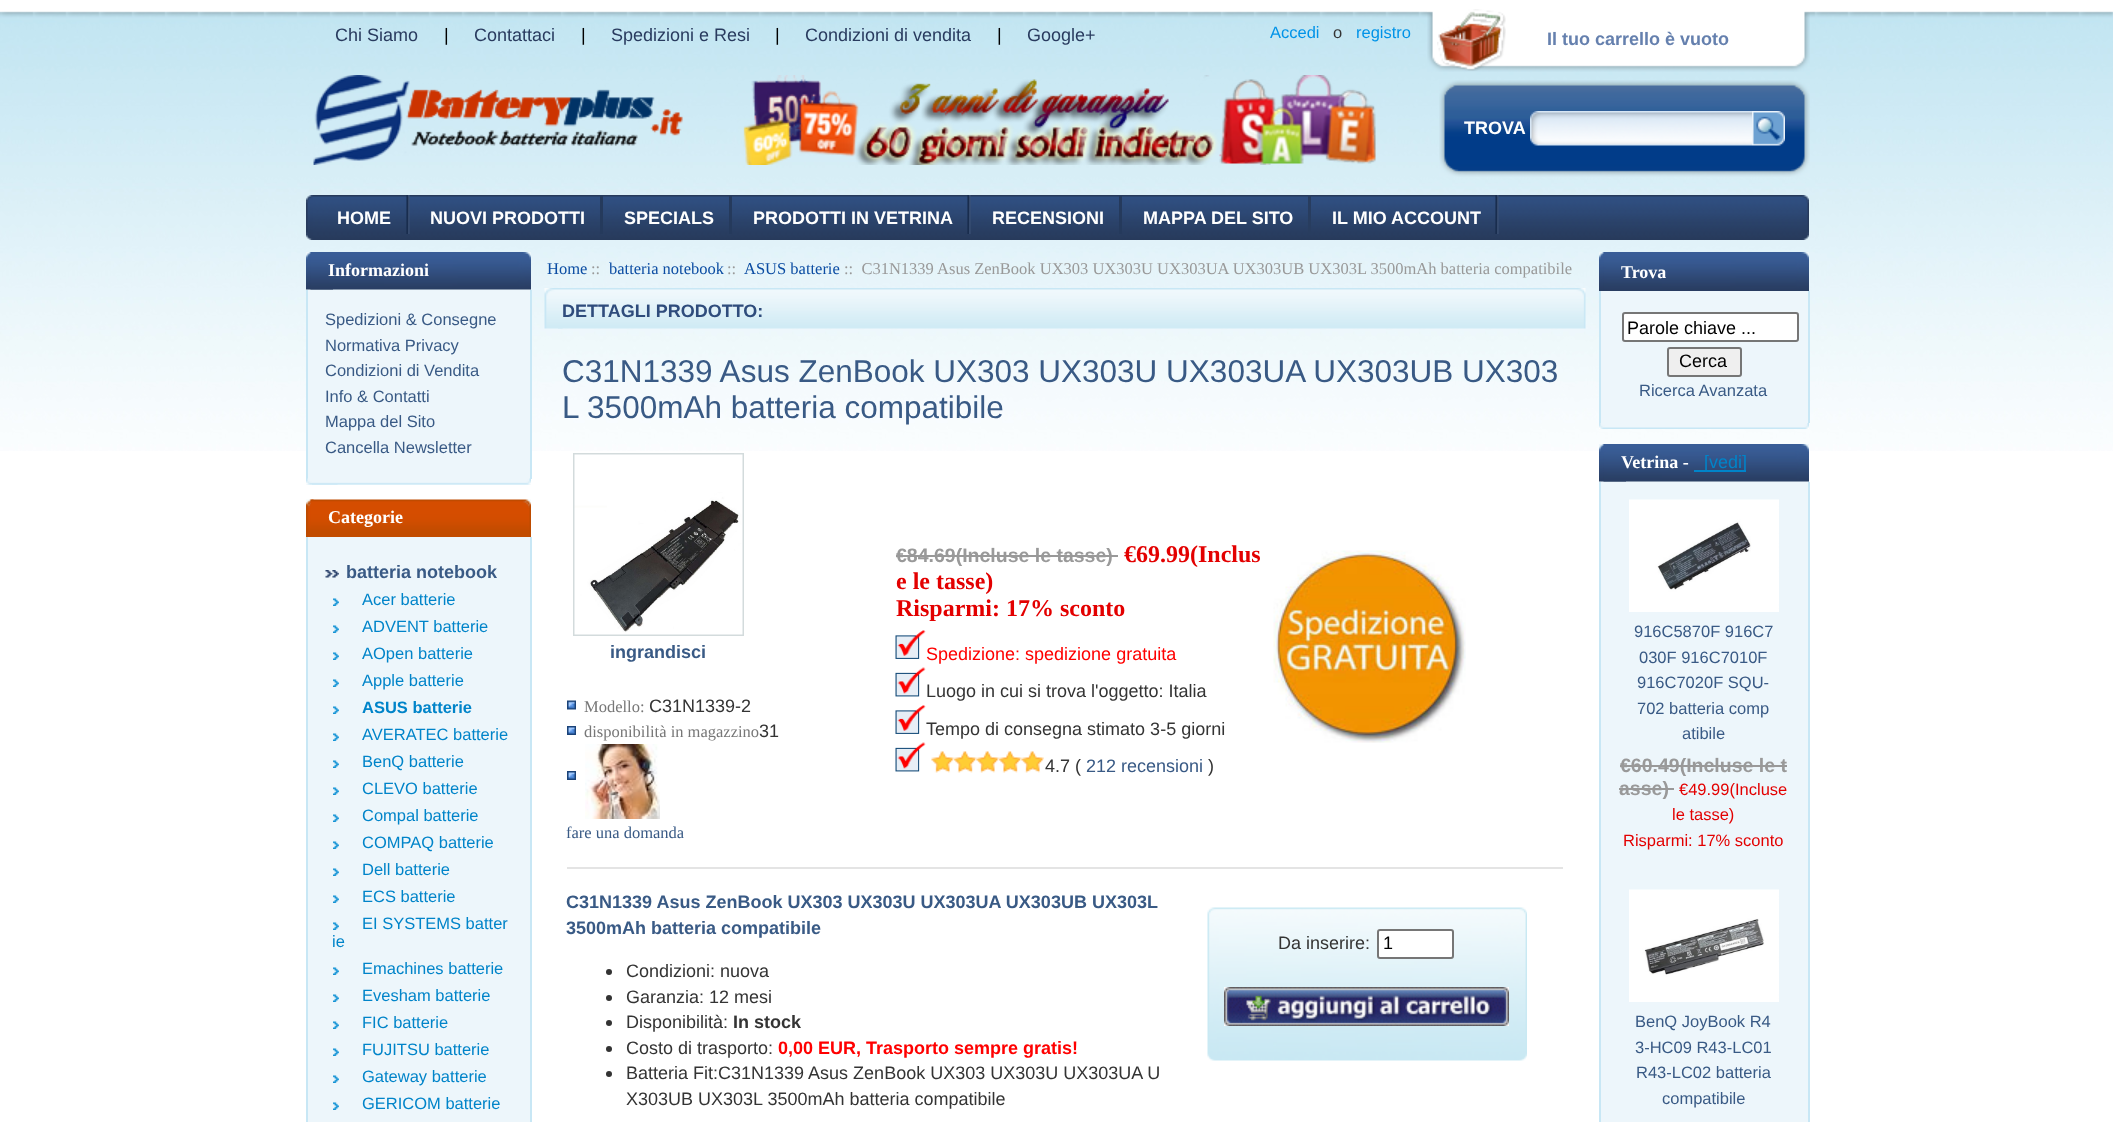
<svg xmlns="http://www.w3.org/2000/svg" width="2113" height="1122">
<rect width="100%" height="100%" fill="#fff"/>
<image x="0" y="11" width="2113" height="440" href="media/1.png"/>
<text x="335" y="41" style="font-family:Liberation Sans;font-size:18px;fill:#293b5f">Chi Siamo</text>
<text x="444" y="41" style="font-family:Liberation Sans;font-size:18px;fill:#000">|</text>
<text x="474" y="41" style="font-family:Liberation Sans;font-size:18px;fill:#293b5f">Contattaci</text>
<text x="581" y="41" style="font-family:Liberation Sans;font-size:18px;fill:#000">|</text>
<text x="611" y="41" style="font-family:Liberation Sans;font-size:18px;fill:#293b5f">Spedizioni e Resi</text>
<text x="775" y="41" style="font-family:Liberation Sans;font-size:18px;fill:#000">|</text>
<text x="805" y="41" style="font-family:Liberation Sans;font-size:18px;fill:#293b5f">Condizioni di vendita</text>
<text x="997" y="41" style="font-family:Liberation Sans;font-size:18px;fill:#000">|</text>
<text x="1027" y="41" style="font-family:Liberation Sans;font-size:18px;fill:#293b5f">Google+</text>
<text x="1270" y="38" style="font-family:Liberation Sans;font-size:16.5px;fill:#0093e8">Accedi</text>
<text x="1333" y="38" style="font-family:Liberation Sans;font-size:16.5px;fill:#343434">o</text>
<text x="1356" y="38" style="font-family:Liberation Sans;font-size:16.5px;fill:#0093e8">registro</text>
<image x="1427" y="11" width="383" height="61" href="media/2.png"/>
<image x="1437" y="9" width="69" height="62" href="media/3.png"/>
<text x="1547" y="45" style="font-family:Liberation Sans;font-size:18px;font-weight:bold;fill:#6580ae">Il tuo carrello è vuoto</text>
<image x="313" y="75" width="370" height="90" href="media/4.png"/>
<image x="743" y="75" width="633" height="90" href="media/5.png"/>
<image x="1439" y="80" width="49" height="97" href="media/6.png"/>
<image x="1488" y="80" width="322" height="97" href="media/7.png"/>
<text x="1464" y="134" style="font-family:Liberation Sans;font-size:18px;font-weight:bold;fill:#fff">TROVA</text>
<image x="1530" y="111" width="222" height="35" href="media/8.png"/>
<image x="1752" y="111" width="33" height="35" href="media/9.png"/>
<image x="313" y="195" width="1489" height="45" href="media/10.png"/>
<image x="306" y="195" width="7" height="45" href="media/11.png"/>
<image x="406" y="195" width="4" height="39" href="media/12.png"/>
<text x="337" y="224" style="font-family:Liberation Sans;font-size:18px;font-weight:bold;fill:#fff">HOME</text>
<rect x="600" y="195" width="3" height="39" fill="#253a5c"/>
<text x="430" y="224" style="font-family:Liberation Sans;font-size:18px;font-weight:bold;fill:#fff">NUOVI PRODOTTI</text>
<rect x="729" y="195" width="3" height="39" fill="#253a5c"/>
<text x="624" y="224" style="font-family:Liberation Sans;font-size:18px;font-weight:bold;fill:#fff">SPECIALS</text>
<image x="967" y="195" width="4" height="39" href="media/13.png"/>
<text x="753" y="224" style="font-family:Liberation Sans;font-size:18px;font-weight:bold;fill:#fff">PRODOTTI IN VETRINA</text>
<rect x="1119" y="195" width="3" height="39" fill="#253a5c"/>
<text x="992" y="224" style="font-family:Liberation Sans;font-size:18px;font-weight:bold;fill:#fff">RECENSIONI</text>
<rect x="1308" y="195" width="3" height="39" fill="#283d5f"/>
<text x="1143" y="224" style="font-family:Liberation Sans;font-size:18px;font-weight:bold;fill:#fff">MAPPA DEL SITO</text>
<image x="1495" y="195" width="4" height="39" href="media/13.png"/>
<text x="1332" y="224" style="font-family:Liberation Sans;font-size:18px;font-weight:bold;fill:#fff">IL MIO ACCOUNT</text>
<image x="1802" y="195" width="7" height="45" href="media/14.png"/>
<rect x="306" y="252" width="225" height="233" fill="#edf6fb"/>
<image x="306" y="252" width="27" height="38" href="media/15.png"/>
<image x="310" y="252" width="221" height="38" href="media/16.png"/>
<text x="328" y="276" style="font-family:Liberation Serif;font-size:18px;font-weight:bold;fill:#fff">Informazioni</text>
<rect x="530" y="290" width="2" height="189" fill="#c8e7f5"/>
<rect x="306" y="290" width="2" height="189" fill="#c8e7f5"/>
<text x="325" y="325" style="font-family:Liberation Sans;font-size:16.5px;fill:#395a85">Spedizioni &amp; Consegne</text>
<text x="325" y="351" style="font-family:Liberation Sans;font-size:16.5px;fill:#395a85">Normativa Privacy</text>
<text x="325" y="376" style="font-family:Liberation Sans;font-size:16.5px;fill:#395a85">Condizioni di Vendita</text>
<text x="325" y="402" style="font-family:Liberation Sans;font-size:16.5px;fill:#395a85">Info &amp; Contatti</text>
<text x="325" y="427" style="font-family:Liberation Sans;font-size:16.5px;fill:#395a85">Mappa del Sito</text>
<text x="325" y="453" style="font-family:Liberation Sans;font-size:16.5px;fill:#395a85">Cancella Newsletter</text>
<image x="306" y="478" width="32" height="7" href="media/17.png"/>
<image x="312" y="478" width="219" height="7" href="media/18.png"/>
<rect x="308" y="537" width="222" height="585" fill="#edf6fb"/>
<image x="306" y="499" width="8" height="38" href="media/19.png"/>
<image x="310" y="499" width="221" height="38" href="media/20.png"/>
<text x="328" y="523" style="font-family:Liberation Serif;font-size:18px;font-weight:bold;fill:#fff">Categorie</text>
<rect x="530" y="537" width="2" height="585" fill="#c8e7f5"/>
<rect x="306" y="537" width="2" height="585" fill="#c8e7f5"/>
<image x="325" y="570" width="14" height="8" href="media/21.png"/>
<text x="346" y="578" style="font-family:Liberation Sans;font-size:18px;font-weight:bold;fill:#395a85">batteria notebook</text>
<image x="333" y="598" width="6" height="8" href="media/22.png"/>
<text x="362" y="605" style="font-family:Liberation Sans;font-size:16.5px;fill:#0084c9">Acer batterie</text>
<image x="333" y="625" width="6" height="8" href="media/22.png"/>
<text x="362" y="632" style="font-family:Liberation Sans;font-size:16.5px;fill:#0084c9">ADVENT batterie</text>
<image x="333" y="652" width="6" height="8" href="media/22.png"/>
<text x="362" y="659" style="font-family:Liberation Sans;font-size:16.5px;fill:#0084c9">AOpen batterie</text>
<image x="333" y="679" width="6" height="8" href="media/22.png"/>
<text x="362" y="686" style="font-family:Liberation Sans;font-size:16.5px;fill:#0084c9">Apple batterie</text>
<image x="333" y="706" width="6" height="8" href="media/22.png"/>
<text x="362" y="713" style="font-family:Liberation Sans;font-size:16.5px;font-weight:bold;fill:#0084c9">ASUS batterie</text>
<image x="333" y="733" width="6" height="8" href="media/22.png"/>
<text x="362" y="740" style="font-family:Liberation Sans;font-size:16.5px;fill:#0084c9">AVERATEC batterie</text>
<image x="333" y="760" width="6" height="8" href="media/22.png"/>
<text x="362" y="767" style="font-family:Liberation Sans;font-size:16.5px;fill:#0084c9">BenQ batterie</text>
<image x="333" y="787" width="6" height="8" href="media/22.png"/>
<text x="362" y="794" style="font-family:Liberation Sans;font-size:16.5px;fill:#0084c9">CLEVO batterie</text>
<image x="333" y="814" width="6" height="8" href="media/22.png"/>
<text x="362" y="821" style="font-family:Liberation Sans;font-size:16.5px;fill:#0084c9">Compal batterie</text>
<image x="333" y="841" width="6" height="8" href="media/22.png"/>
<text x="362" y="848" style="font-family:Liberation Sans;font-size:16.5px;fill:#0084c9">COMPAQ batterie</text>
<image x="333" y="868" width="6" height="8" href="media/22.png"/>
<text x="362" y="875" style="font-family:Liberation Sans;font-size:16.5px;fill:#0084c9">Dell batterie</text>
<image x="333" y="895" width="6" height="8" href="media/22.png"/>
<text x="362" y="902" style="font-family:Liberation Sans;font-size:16.5px;fill:#0084c9">ECS batterie</text>
<image x="333" y="922" width="6" height="8" href="media/22.png"/>
<text x="362" y="929" style="font-family:Liberation Sans;font-size:16.5px;fill:#0084c9">EI SYSTEMS batter</text>
<text x="332" y="947" style="font-family:Liberation Sans;font-size:16.5px;fill:#0084c9">ie</text>
<image x="333" y="967" width="6" height="8" href="media/22.png"/>
<text x="362" y="974" style="font-family:Liberation Sans;font-size:16.5px;fill:#0084c9">Emachines batterie</text>
<image x="333" y="994" width="6" height="8" href="media/22.png"/>
<text x="362" y="1001" style="font-family:Liberation Sans;font-size:16.5px;fill:#0084c9">Evesham batterie</text>
<image x="333" y="1021" width="6" height="8" href="media/22.png"/>
<text x="362" y="1028" style="font-family:Liberation Sans;font-size:16.5px;fill:#0084c9">FIC batterie</text>
<image x="333" y="1048" width="6" height="8" href="media/22.png"/>
<text x="362" y="1055" style="font-family:Liberation Sans;font-size:16.5px;fill:#0084c9">FUJITSU batterie</text>
<image x="333" y="1075" width="6" height="8" href="media/22.png"/>
<text x="362" y="1082" style="font-family:Liberation Sans;font-size:16.5px;fill:#0084c9">Gateway batterie</text>
<image x="333" y="1102" width="6" height="8" href="media/22.png"/>
<text x="362" y="1109" style="font-family:Liberation Sans;font-size:16.5px;fill:#0084c9">GERICOM batterie</text>
<text x="547" y="274" style="font-family:Liberation Serif;font-size:16.5px;fill:#0c4da3">Home</text>
<text x="591" y="274" style="font-family:Liberation Serif;font-size:16.5px;fill:#999">::</text>
<text x="609" y="274" style="font-family:Liberation Serif;font-size:16.5px;fill:#0c4da3">batteria notebook</text>
<text x="727" y="274" style="font-family:Liberation Serif;font-size:16.5px;fill:#999">::</text>
<text x="744" y="274" style="font-family:Liberation Serif;font-size:16.5px;fill:#0c4da3">ASUS batterie</text>
<text x="844" y="274" style="font-family:Liberation Serif;font-size:16.5px;fill:#999" xml:space="preserve">::  C31N1339 Asus ZenBook UX303 UX303U UX303UA UX303UB UX303L 3500mAh batteria compatibile</text>
<image x="544" y="288" width="19" height="41" href="media/23.png"/>
<image x="558" y="288" width="1028" height="41" href="media/24.png"/>
<text x="562" y="317" style="font-family:Liberation Sans;font-size:18px;font-weight:bold;fill:#2f4c7c">DETTAGLI PRODOTTO:</text>
<text x="562" y="382" style="font-family:Liberation Sans;font-size:31.5px;fill:#395a85">C31N1339 Asus ZenBook UX303 UX303U UX303UA UX303UB UX303</text>
<text x="562" y="418" style="font-family:Liberation Sans;font-size:31.5px;fill:#395a85">L 3500mAh batteria compatibile</text>
<rect x="574" y="454" width="169" height="181" fill="none" stroke="#d3dbdc" stroke-width="2"/>
<image x="574" y="454" width="169" height="181" href="media/25.png"/>
<text x="610" y="658" style="font-family:Liberation Sans;font-size:18px;font-weight:bold;fill:#395a85">ingrandisci</text>
<image x="567" y="700" width="9" height="10" href="media/26.png"/>
<text x="584" y="712" style="font-family:Liberation Serif;font-size:16.5px;fill:#777">Modello:</text>
<text x="649" y="712" style="font-family:Liberation Sans;font-size:18px;fill:#343434">C31N1339-2</text>
<image x="567" y="726" width="9" height="9" href="media/27.png"/>
<text x="584" y="737" style="font-family:Liberation Serif;font-size:16.5px;fill:#777">disponibilità in magazzino</text>
<text x="759" y="737" style="font-family:Liberation Sans;font-size:18px;fill:#343434">31</text>
<image x="567" y="771" width="9" height="9" href="media/27.png"/>
<image x="585" y="744" width="75" height="75" href="media/28.png"/>
<text x="566" y="838" style="font-family:Liberation Serif;font-size:16.5px;fill:#395a85">fare una domanda</text>
<text x="896" y="562" style="font-family:Liberation Sans;font-size:19.5px;font-weight:bold;fill:#999">€84.69(Incluse le tasse)</text>
<rect x="896" y="555" width="222" height="2" fill="#999"/>
<text x="1124" y="562" style="font-family:Liberation Serif;font-size:24px;font-weight:bold;fill:#e30000">€69.99(Inclus</text>
<text x="896" y="589" style="font-family:Liberation Serif;font-size:24px;font-weight:bold;fill:#e30000">e le tasse)</text>
<text x="896" y="616" style="font-family:Liberation Serif;font-size:24px;font-weight:bold;fill:#e30000">Risparmi: 17% sconto</text>
<image x="895" y="630" width="31" height="29" href="media/29.png"/>
<text x="926" y="660" style="font-family:Liberation Sans;font-size:18px;fill:#f00">Spedizione: spedizione gratuita</text>
<image x="895" y="667" width="31" height="30" href="media/30.png"/>
<text x="926" y="697" style="font-family:Liberation Sans;font-size:18px;fill:#343434">Luogo in cui si trova l'oggetto: Italia</text>
<image x="895" y="705" width="31" height="29" href="media/29.png"/>
<text x="926" y="735" style="font-family:Liberation Sans;font-size:18px;fill:#343434">Tempo di consegna stimato 3-5 giorni</text>
<image x="895" y="742" width="31" height="30" href="media/30.png"/>
<image x="931" y="751" width="113" height="22" href="media/31.png"/>
<text x="1045" y="772" style="font-family:Liberation Sans;font-size:18px;fill:#343434">4.7 (</text>
<text x="1086" y="772" style="font-family:Liberation Sans;font-size:18px;fill:#395a85">212 recensioni</text>
<text x="1208" y="772" style="font-family:Liberation Sans;font-size:18px;fill:#343434">)</text>
<image x="1273" y="550" width="193" height="193" href="media/32.png"/>
<rect x="567" y="867" width="996" height="2" fill="#e4e4e4"/>
<text x="566" y="908" style="font-family:Liberation Sans;font-size:18px;font-weight:bold;fill:#395a85">C31N1339 Asus ZenBook UX303 UX303U UX303UA UX303UB UX303L</text>
<text x="566" y="934" style="font-family:Liberation Sans;font-size:18px;font-weight:bold;fill:#395a85">3500mAh batteria compatibile</text>
<image x="1207" y="907" width="320" height="154" href="media/33.png"/>
<text x="1278" y="949" style="font-family:Liberation Sans;font-size:18px;fill:#343434">Da inserire:</text>
<rect x="1378" y="930" width="75" height="28" rx="2" fill="#fff" stroke="#767676" stroke-width="2"/>
<text x="1383" y="949" style="font-family:Liberation Sans;font-size:18px;fill:#000">1</text>
<image x="1224" y="987" width="285" height="39" href="media/34.png"/>
<circle cx="609" cy="972" r="3" fill="#333"/>
<text x="626" y="977" style="font-family:Liberation Sans;font-size:18px;fill:#343434">Condizioni: nuova</text>
<circle cx="609" cy="998" r="3" fill="#333"/>
<text x="626" y="1003" style="font-family:Liberation Sans;font-size:18px;fill:#343434">Garanzia: 12 mesi</text>
<circle cx="609" cy="1023" r="3" fill="#333"/>
<text x="626" y="1028" style="font-family:Liberation Sans;font-size:18px;fill:#343434">Disponibilità:</text>
<text x="733" y="1028" style="font-family:Liberation Sans;font-size:18px;font-weight:bold;fill:#343434">In stock</text>
<circle cx="609" cy="1049" r="3" fill="#333"/>
<text x="626" y="1054" style="font-family:Liberation Sans;font-size:18px;fill:#343434">Costo di trasporto:</text>
<text x="778" y="1054" style="font-family:Liberation Sans;font-size:18px;font-weight:bold;fill:#f00">0,00 EUR, Trasporto sempre gratis!</text>
<circle cx="609" cy="1074" r="3" fill="#333"/>
<text x="626" y="1079" style="font-family:Liberation Sans;font-size:18px;fill:#343434">Batteria Fit:C31N1339 Asus ZenBook UX303 UX303U UX303UA U</text>
<text x="626" y="1105" style="font-family:Liberation Sans;font-size:18px;fill:#343434">X303UB UX303L 3500mAh batteria compatibile</text>
<rect x="1599" y="252" width="210" height="171" fill="#edf6fb"/>
<image x="1599" y="252" width="5" height="39" href="media/35.png"/>
<image x="1603" y="252" width="206" height="39" href="media/36.png"/>
<text x="1621" y="278" style="font-family:Liberation Serif;font-size:18px;font-weight:bold;fill:#fff">Trova</text>
<rect x="1808" y="291" width="2" height="132" fill="#c8e7f5"/>
<rect x="1599" y="291" width="2" height="132" fill="#c8e7f5"/>
<rect x="1623" y="313" width="175" height="28" rx="2" fill="#fff" stroke="#767676" stroke-width="2"/>
<text x="1627" y="334" style="font-family:Liberation Sans;font-size:18px;fill:#000">Parole chiave ...</text>
<rect x="1668" y="348" width="73" height="28" rx="2" fill="#efefef" stroke="#767676" stroke-width="2"/>
<text x="1679" y="367" style="font-family:Liberation Sans;font-size:18px;fill:#000">Cerca</text>
<text x="1639" y="396" style="font-family:Liberation Sans;font-size:16.5px;fill:#395a85">Ricerca Avanzata</text>
<image x="1599" y="423" width="31" height="6" href="media/37.png"/>
<image x="1630" y="423" width="179" height="6" href="media/38.png"/>
<rect x="1599" y="444" width="210" height="678" fill="#edf6fb"/>
<image x="1599" y="444" width="27" height="38" href="media/15.png"/>
<image x="1603" y="444" width="206" height="38" href="media/39.png"/>
<text x="1621" y="468" style="font-family:Liberation Serif;font-size:18px;font-weight:bold;fill:#fff">Vetrina -</text>
<rect x="1694" y="470" width="52" height="2" fill="#0084c9"/>
<text x="1704" y="468" style="font-family:Liberation Sans;font-size:18px;fill:#0084c9">[vedi]</text>
<rect x="1808" y="482" width="2" height="640" fill="#c8e7f5"/>
<rect x="1599" y="482" width="2" height="640" fill="#c8e7f5"/>
<image x="1629" y="499" width="150" height="113" href="media/40.png"/>
<text x="1634" y="637" style="font-family:Liberation Sans;font-size:16.5px;fill:#395a85">916C5870F 916C7</text>
<text x="1639" y="663" style="font-family:Liberation Sans;font-size:16.5px;fill:#395a85">030F 916C7010F</text>
<text x="1637" y="688" style="font-family:Liberation Sans;font-size:16.5px;fill:#395a85">916C7020F SQU-</text>
<text x="1637" y="714" style="font-family:Liberation Sans;font-size:16.5px;fill:#395a85">702 batteria comp</text>
<text x="1682" y="739" style="font-family:Liberation Sans;font-size:16.5px;fill:#395a85">atibile</text>
<text x="1620" y="772" style="font-family:Liberation Sans;font-size:19.5px;font-weight:bold;fill:#999">€60.49(Incluse le t</text>
<rect x="1620" y="765" width="167" height="2" fill="#999"/>
<text x="1619" y="795" style="font-family:Liberation Sans;font-size:19.5px;font-weight:bold;fill:#999">asse)</text>
<rect x="1619" y="788" width="55" height="2" fill="#999"/>
<text x="1679" y="795" style="font-family:Liberation Sans;font-size:16.5px;fill:#e30000">€49.99(Incluse</text>
<text x="1672" y="820" style="font-family:Liberation Sans;font-size:16.5px;fill:#e30000">le tasse)</text>
<text x="1623" y="846" style="font-family:Liberation Sans;font-size:16.5px;fill:#e30000">Risparmi: 17% sconto</text>
<image x="1629" y="889" width="150" height="113" href="media/41.png"/>
<text x="1635" y="1027" style="font-family:Liberation Sans;font-size:16.5px;fill:#395a85">BenQ JoyBook R4</text>
<text x="1635" y="1053" style="font-family:Liberation Sans;font-size:16.5px;fill:#395a85">3-HC09 R43-LC01</text>
<text x="1636" y="1078" style="font-family:Liberation Sans;font-size:16.5px;fill:#395a85">R43-LC02 batteria</text>
<text x="1662" y="1104" style="font-family:Liberation Sans;font-size:16.5px;fill:#395a85">compatibile</text>
</svg>
